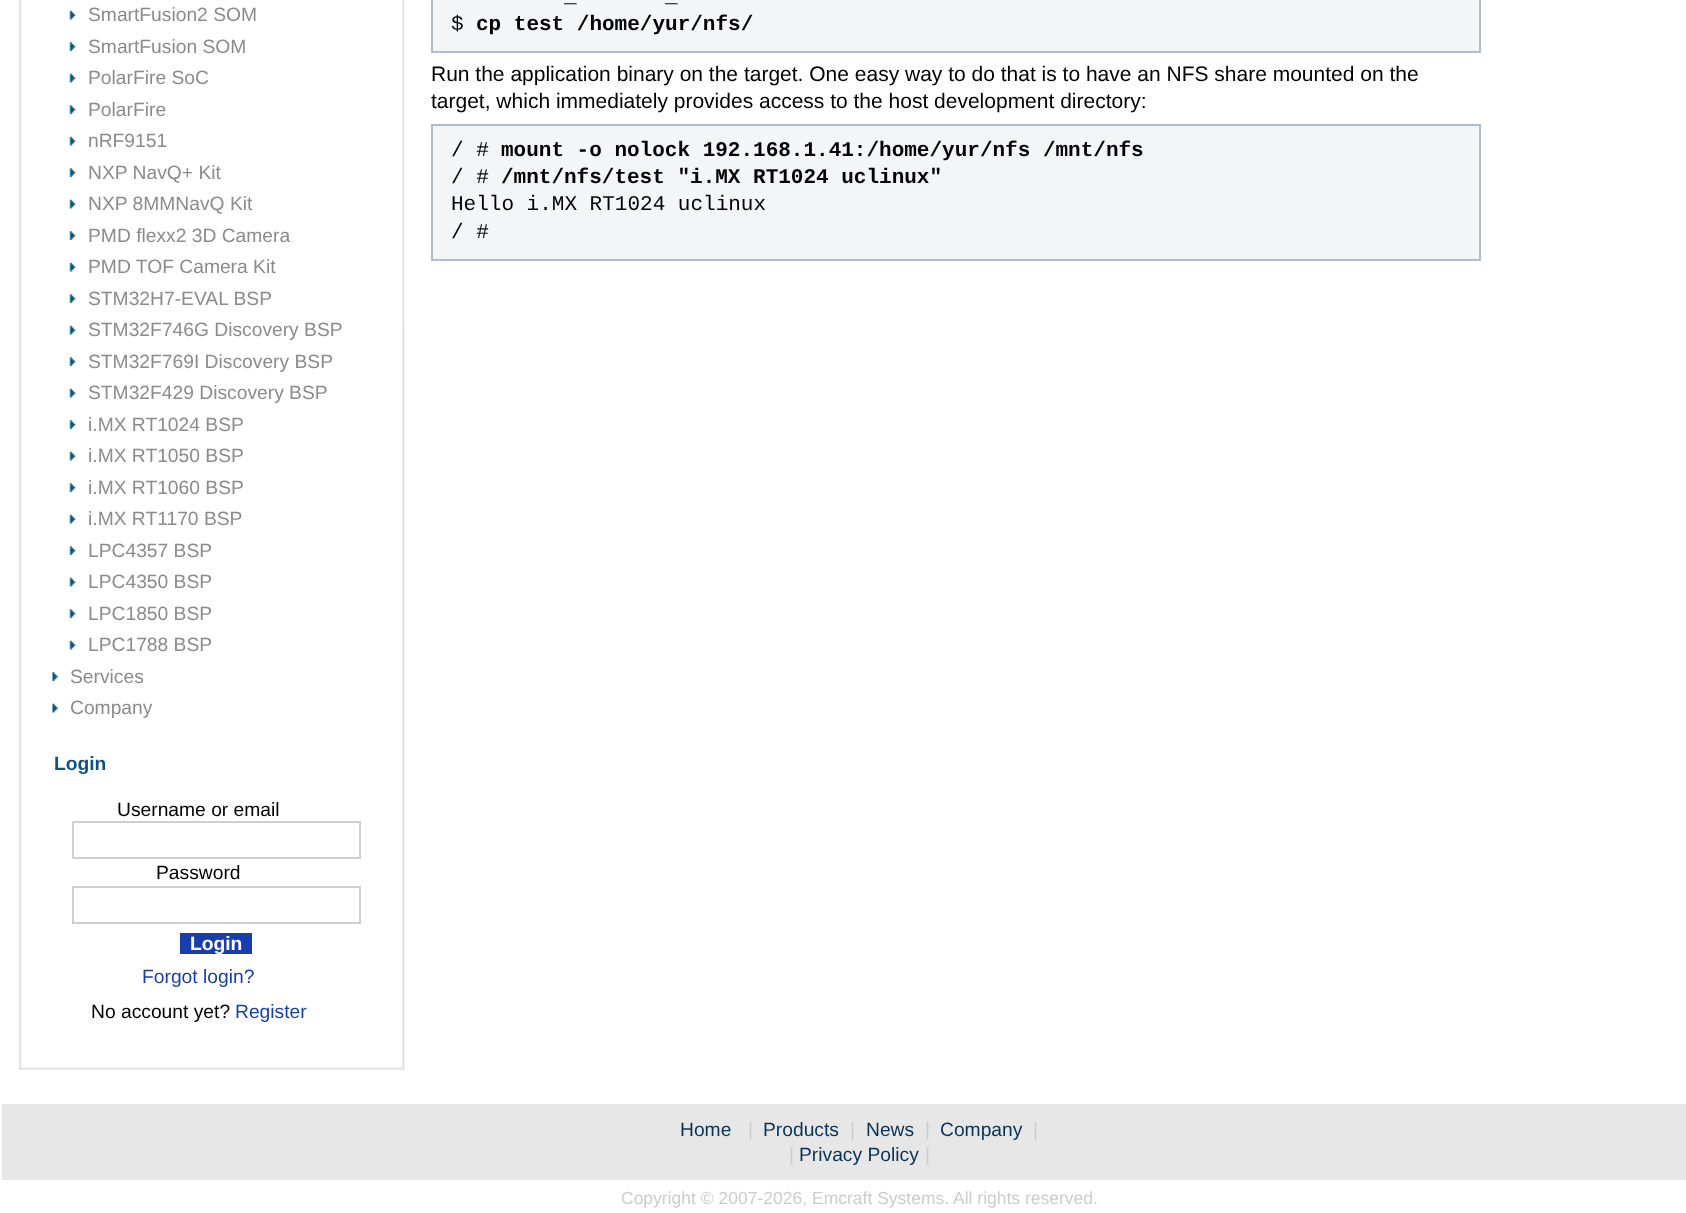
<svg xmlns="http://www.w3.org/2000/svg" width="1686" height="1213">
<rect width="100%" height="100%" fill="#fff"/>
<image x="19" y="0" width="386" height="1070" href="media/1.png"/>
<image x="19" y="1066" width="386" height="4" href="media/2.png"/>
<image x="69" y="10" width="7" height="10" href="media/3.png"/>
<text x="88" y="21" style="font-family:Liberation Sans;font-size:19.25px;fill:#8b8b8b">SmartFusion2 SOM</text>
<image x="69" y="42" width="7" height="9" href="media/4.png"/>
<text x="88" y="53" style="font-family:Liberation Sans;font-size:19.25px;fill:#8b8b8b">SmartFusion SOM</text>
<image x="69" y="73" width="7" height="10" href="media/3.png"/>
<text x="88" y="84" style="font-family:Liberation Sans;font-size:19.25px;fill:#8b8b8b">PolarFire SoC</text>
<image x="69" y="105" width="7" height="9" href="media/4.png"/>
<text x="88" y="116" style="font-family:Liberation Sans;font-size:19.25px;fill:#8b8b8b">PolarFire</text>
<image x="69" y="136" width="7" height="10" href="media/3.png"/>
<text x="88" y="147" style="font-family:Liberation Sans;font-size:19.25px;fill:#8b8b8b">nRF9151</text>
<image x="69" y="168" width="7" height="9" href="media/4.png"/>
<text x="88" y="179" style="font-family:Liberation Sans;font-size:19.25px;fill:#8b8b8b">NXP NavQ+ Kit</text>
<image x="69" y="199" width="7" height="10" href="media/3.png"/>
<text x="88" y="210" style="font-family:Liberation Sans;font-size:19.25px;fill:#8b8b8b">NXP 8MMNavQ Kit</text>
<image x="69" y="231" width="7" height="9" href="media/4.png"/>
<text x="88" y="242" style="font-family:Liberation Sans;font-size:19.25px;fill:#8b8b8b">PMD flexx2 3D Camera</text>
<image x="69" y="262" width="7" height="10" href="media/3.png"/>
<text x="88" y="273" style="font-family:Liberation Sans;font-size:19.25px;fill:#8b8b8b">PMD TOF Camera Kit</text>
<image x="69" y="294" width="7" height="9" href="media/4.png"/>
<text x="88" y="305" style="font-family:Liberation Sans;font-size:19.25px;fill:#8b8b8b">STM32H7-EVAL BSP</text>
<image x="69" y="325" width="7" height="10" href="media/3.png"/>
<text x="88" y="336" style="font-family:Liberation Sans;font-size:19.25px;fill:#8b8b8b">STM32F746G Discovery BSP</text>
<image x="69" y="357" width="7" height="9" href="media/4.png"/>
<text x="88" y="368" style="font-family:Liberation Sans;font-size:19.25px;fill:#8b8b8b">STM32F769I Discovery BSP</text>
<image x="69" y="388" width="7" height="10" href="media/3.png"/>
<text x="88" y="399" style="font-family:Liberation Sans;font-size:19.25px;fill:#8b8b8b">STM32F429 Discovery BSP</text>
<image x="69" y="420" width="7" height="9" href="media/4.png"/>
<text x="88" y="431" style="font-family:Liberation Sans;font-size:19.25px;fill:#8b8b8b">i.MX RT1024 BSP</text>
<image x="69" y="451" width="7" height="10" href="media/3.png"/>
<text x="88" y="462" style="font-family:Liberation Sans;font-size:19.25px;fill:#8b8b8b">i.MX RT1050 BSP</text>
<image x="69" y="483" width="7" height="9" href="media/4.png"/>
<text x="88" y="494" style="font-family:Liberation Sans;font-size:19.25px;fill:#8b8b8b">i.MX RT1060 BSP</text>
<image x="69" y="514" width="7" height="10" href="media/3.png"/>
<text x="88" y="525" style="font-family:Liberation Sans;font-size:19.25px;fill:#8b8b8b">i.MX RT1170 BSP</text>
<image x="69" y="546" width="7" height="9" href="media/4.png"/>
<text x="88" y="557" style="font-family:Liberation Sans;font-size:19.25px;fill:#8b8b8b">LPC4357 BSP</text>
<image x="69" y="577" width="7" height="10" href="media/3.png"/>
<text x="88" y="588" style="font-family:Liberation Sans;font-size:19.25px;fill:#8b8b8b">LPC4350 BSP</text>
<image x="69" y="609" width="7" height="9" href="media/4.png"/>
<text x="88" y="620" style="font-family:Liberation Sans;font-size:19.25px;fill:#8b8b8b">LPC1850 BSP</text>
<image x="69" y="640" width="7" height="10" href="media/3.png"/>
<text x="88" y="651" style="font-family:Liberation Sans;font-size:19.25px;fill:#8b8b8b">LPC1788 BSP</text>
<image x="52" y="672" width="6" height="9" href="media/5.png"/>
<text x="70" y="683" style="font-family:Liberation Sans;font-size:19.25px;fill:#8b8b8b">Services</text>
<image x="52" y="703" width="6" height="10" href="media/6.png"/>
<text x="70" y="714" style="font-family:Liberation Sans;font-size:19.25px;fill:#8b8b8b">Company</text>
<text x="54" y="770" style="font-family:Liberation Sans;font-size:19.25px;font-weight:bold;fill:#0d5284">Login</text>
<text x="117" y="816" style="font-family:Liberation Sans;font-size:19.25px;fill:#000">Username or email</text>
<rect x="73" y="822" width="287" height="36" fill="none" stroke="#cfcfcf" stroke-width="2"/>
<text x="156" y="879" style="font-family:Liberation Sans;font-size:19.25px;fill:#000">Password</text>
<rect x="73" y="887" width="287" height="36" fill="none" stroke="#cfcfcf" stroke-width="2"/>
<rect x="180" y="933" width="72" height="21" fill="#183daf"/>
<text x="190" y="950" style="font-family:Liberation Sans;font-size:19.25px;font-weight:bold;fill:#fff">Login</text>
<text x="142" y="983" style="font-family:Liberation Sans;font-size:19.25px;fill:#183daf">Forgot login?</text>
<text x="91" y="1018" style="font-family:Liberation Sans;font-size:19.25px;fill:#000">No account yet?</text>
<text x="235" y="1018" style="font-family:Liberation Sans;font-size:19.25px;fill:#183daf">Register</text>
<rect x="404" width="1" height="324" fill="#fff"/>
<rect x="432" y="-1" width="1048" height="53" fill="#f3f5f7" stroke="#aebdcc" stroke-width="2"/>
<text x="564" y="2" style="font-family:Liberation Mono;font-size:21px;font-weight:bold;fill:#000">_</text>
<text x="665" y="2" style="font-family:Liberation Mono;font-size:21px;font-weight:bold;fill:#000">_</text>
<text x="451" y="30" style="font-family:Liberation Mono;font-size:21px;fill:#000">$</text>
<text x="476" y="30" style="font-family:Liberation Mono;font-size:21px;font-weight:bold;fill:#000">cp test /home/yur/nfs/</text>
<text x="431" y="81" style="font-family:Liberation Sans;font-size:21px;fill:#000">Run the application binary on the target. One easy way to do that is to have an NFS share mounted on the</text>
<text x="431" y="108" style="font-family:Liberation Sans;font-size:21px;fill:#000">target, which immediately provides access to the host development directory:</text>
<rect x="432" y="125" width="1048" height="135" fill="#f3f5f7" stroke="#aebdcc" stroke-width="2"/>
<text x="451" y="156" style="font-family:Liberation Mono;font-size:21px;fill:#000">/ #</text>
<text x="501" y="156" style="font-family:Liberation Mono;font-size:21px;font-weight:bold;fill:#000">mount -o nolock 192.168.1.41:/home/yur/nfs /mnt/nfs</text>
<text x="451" y="183" style="font-family:Liberation Mono;font-size:21px;fill:#000">/ #</text>
<text x="501" y="183" style="font-family:Liberation Mono;font-size:21px;font-weight:bold;fill:#000">/mnt/nfs/test "i.MX RT1024 uclinux"</text>
<text x="451" y="210" style="font-family:Liberation Mono;font-size:21px;fill:#000">Hello i.MX RT1024 uclinux</text>
<text x="451" y="238" style="font-family:Liberation Mono;font-size:21px;fill:#000">/ #</text>
<rect x="2" y="1104" width="1684" height="76" fill="#e7e7e7"/>
<text x="680" y="1136" style="font-family:Liberation Sans;font-size:19.25px;fill:#093356">Home</text>
<text x="748" y="1136" style="font-family:Liberation Sans;font-size:19.25px;fill:#ccc">|</text>
<text x="763" y="1136" style="font-family:Liberation Sans;font-size:19.25px;fill:#093356">Products</text>
<text x="850" y="1136" style="font-family:Liberation Sans;font-size:19.25px;fill:#ccc">|</text>
<text x="866" y="1136" style="font-family:Liberation Sans;font-size:19.25px;fill:#093356">News</text>
<text x="925" y="1136" style="font-family:Liberation Sans;font-size:19.25px;fill:#ccc">|</text>
<text x="940" y="1136" style="font-family:Liberation Sans;font-size:19.25px;fill:#093356">Company</text>
<text x="1033" y="1136" style="font-family:Liberation Sans;font-size:19.25px;fill:#ccc">|</text>
<text x="789" y="1161" style="font-family:Liberation Sans;font-size:19.25px;fill:#ccc">|</text>
<text x="799" y="1161" style="font-family:Liberation Sans;font-size:19.25px;fill:#093356">Privacy Policy</text>
<text x="925" y="1161" style="font-family:Liberation Sans;font-size:19.25px;fill:#ccc">|</text>
<text x="621" y="1204" style="font-family:Liberation Sans;font-size:17.5px;fill:#ccc">Copyright © 2007-2026,</text>
<text x="812" y="1204" style="font-family:Liberation Sans;font-size:17.5px;fill:#ccc">Emcraft Systems.</text>
<text x="953" y="1204" style="font-family:Liberation Sans;font-size:17.5px;fill:#ccc">All rights reserved.</text>
</svg>
